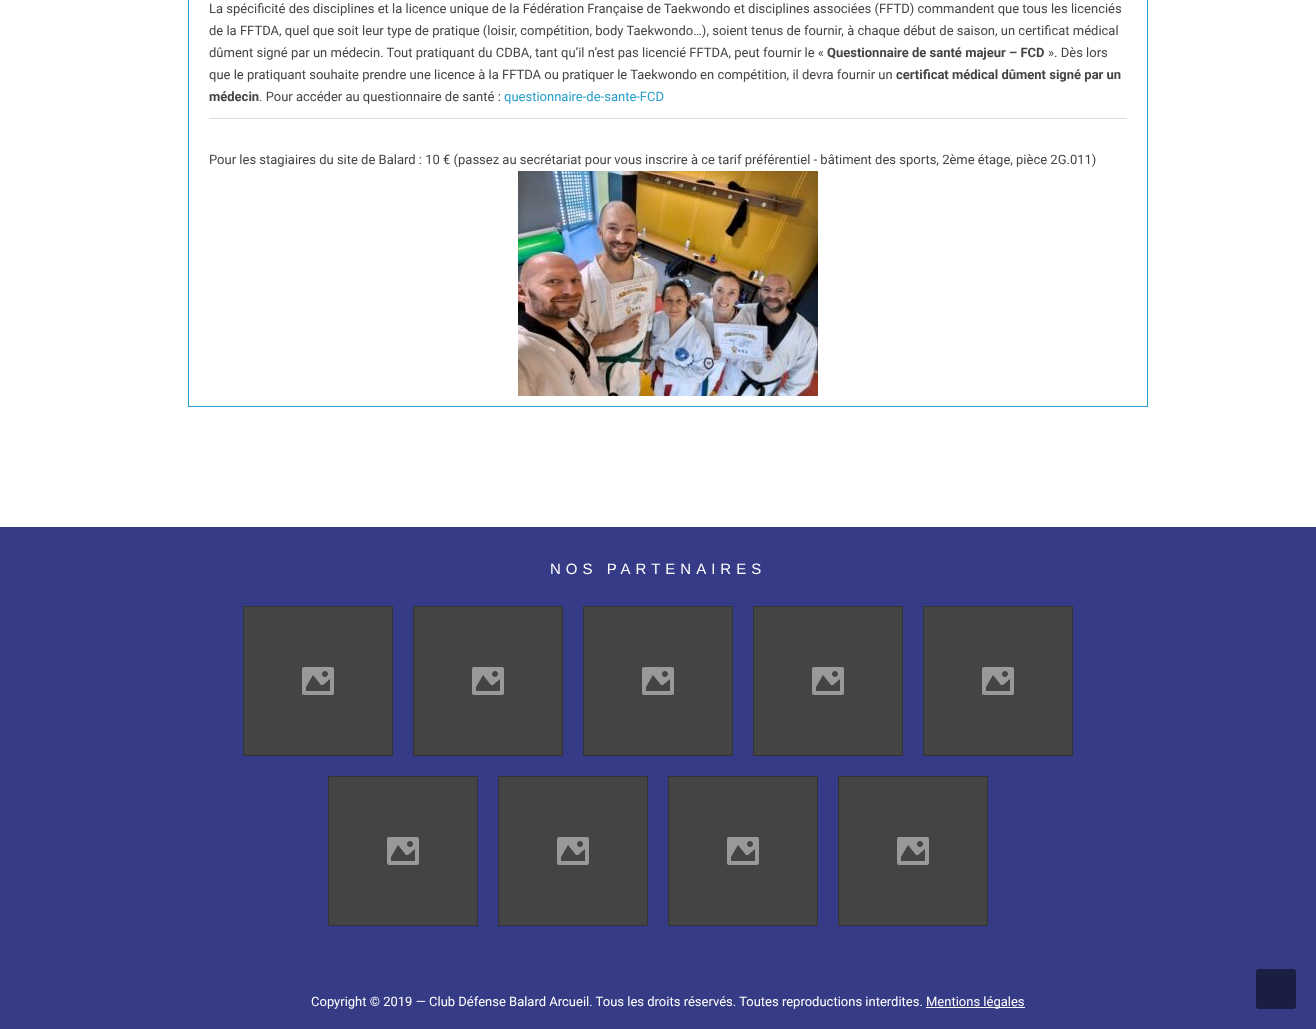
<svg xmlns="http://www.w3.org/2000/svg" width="1316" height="1029">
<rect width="100%" height="100%" fill="#fff"/>
<rect x="188.5" y="-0.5" width="959" height="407" fill="none" stroke="#289dcc"/>
<text x="209" y="13" style="font-family:Roboto;font-size:13px;fill:#444">La spécificité des disciplines et la licence unique de la Fédération Française de Taekwondo et disciplines associées (FFTD) commandent que tous les licenciés</text>
<text x="209" y="35" style="font-family:Roboto;font-size:13px;fill:#444">de la FFTDA, quel que soit leur type de pratique (loisir, compétition, body Taekwondo…), soient tenus de fournir, à chaque début de saison, un certificat médical</text>
<text x="209" y="57" style="font-family:Roboto;font-size:13px;fill:#444">dûment signé par un médecin. Tout pratiquant du CDBA, tant qu’il n’est pas licencié FFTDA, peut fournir le «</text>
<text x="827" y="57" style="font-family:Roboto;font-size:13px;font-weight:bold;fill:#444">Questionnaire de santé majeur – FCD</text>
<text x="1048" y="57" style="font-family:Roboto;font-size:13px;fill:#444">». Dès lors</text>
<text x="209" y="79" style="font-family:Roboto;font-size:13px;fill:#444">que le pratiquant souhaite prendre une licence à la FFTDA ou pratiquer le Taekwondo en compétition, il devra fournir un</text>
<text x="896" y="79" style="font-family:Roboto;font-size:13px;font-weight:bold;fill:#444">certificat médical dûment signé par un</text>
<text x="209" y="101" style="font-family:Roboto;font-size:13px;font-weight:bold;fill:#444">médecin</text>
<text x="259" y="101" style="font-family:Roboto;font-size:13px;fill:#444">. Pour accéder au questionnaire de santé :</text>
<text x="504" y="101" style="font-family:Roboto;font-size:13px;fill:#289dcc">questionnaire-de-sante-FCD</text>
<rect x="209" y="118" width="918" height="1" fill="#ddd"/>
<text x="209" y="164" style="font-family:Roboto;font-size:13px;fill:#444">Pour les stagiaires du site de Balard : 10 € (passez au secrétariat pour vous inscrire à ce tarif préférentiel - bâtiment des sports, 2ème étage, pièce 2G.011)</text>
<image x="518" y="171" width="300" height="225" href="media/1.png"/>
<rect y="527" width="1316" height="449" fill="#363b87"/>
<text x="550" y="574" style="font-family:Liberation Sans;font-size:15px;letter-spacing:5px;fill:#fff">NOS PARTENAIRES</text>
<rect x="243.5" y="606.5" width="149" height="149" fill="#444" stroke="#333"/>
<image x="302" y="667" width="32" height="28" href="media/2.png"/>
<rect x="413.5" y="606.5" width="149" height="149" fill="#444" stroke="#333"/>
<image x="472" y="667" width="32" height="28" href="media/2.png"/>
<rect x="583.5" y="606.5" width="149" height="149" fill="#444" stroke="#333"/>
<image x="642" y="667" width="32" height="28" href="media/2.png"/>
<rect x="753.5" y="606.5" width="149" height="149" fill="#444" stroke="#333"/>
<image x="812" y="667" width="32" height="28" href="media/2.png"/>
<rect x="923.5" y="606.5" width="149" height="149" fill="#444" stroke="#333"/>
<image x="982" y="667" width="32" height="28" href="media/2.png"/>
<rect x="328.5" y="776.5" width="149" height="149" fill="#444" stroke="#333"/>
<image x="387" y="837" width="32" height="28" href="media/2.png"/>
<rect x="498.5" y="776.5" width="149" height="149" fill="#444" stroke="#333"/>
<image x="557" y="837" width="32" height="28" href="media/2.png"/>
<rect x="668.5" y="776.5" width="149" height="149" fill="#444" stroke="#333"/>
<image x="727" y="837" width="32" height="28" href="media/2.png"/>
<rect x="838.5" y="776.5" width="149" height="149" fill="#444" stroke="#333"/>
<image x="897" y="837" width="32" height="28" href="media/2.png"/>
<rect y="976" width="1316" height="53" fill="#363b86"/>
<text x="311" y="1006" style="font-family:Roboto;font-size:13px;fill:#fff">Copyright © 2019 — Club Défense Balard Arcueil. Tous les droits réservés. Toutes reproductions interdites.</text>
<rect x="926" y="1007" width="99" height="1" fill="#fff"/>
<text x="926" y="1006" style="font-family:Roboto;font-size:13px;fill:#fff">Mentions légales</text>
<rect x="1256" y="969" width="40" height="40" rx="3" fill="#1b1e43"/>
</svg>
